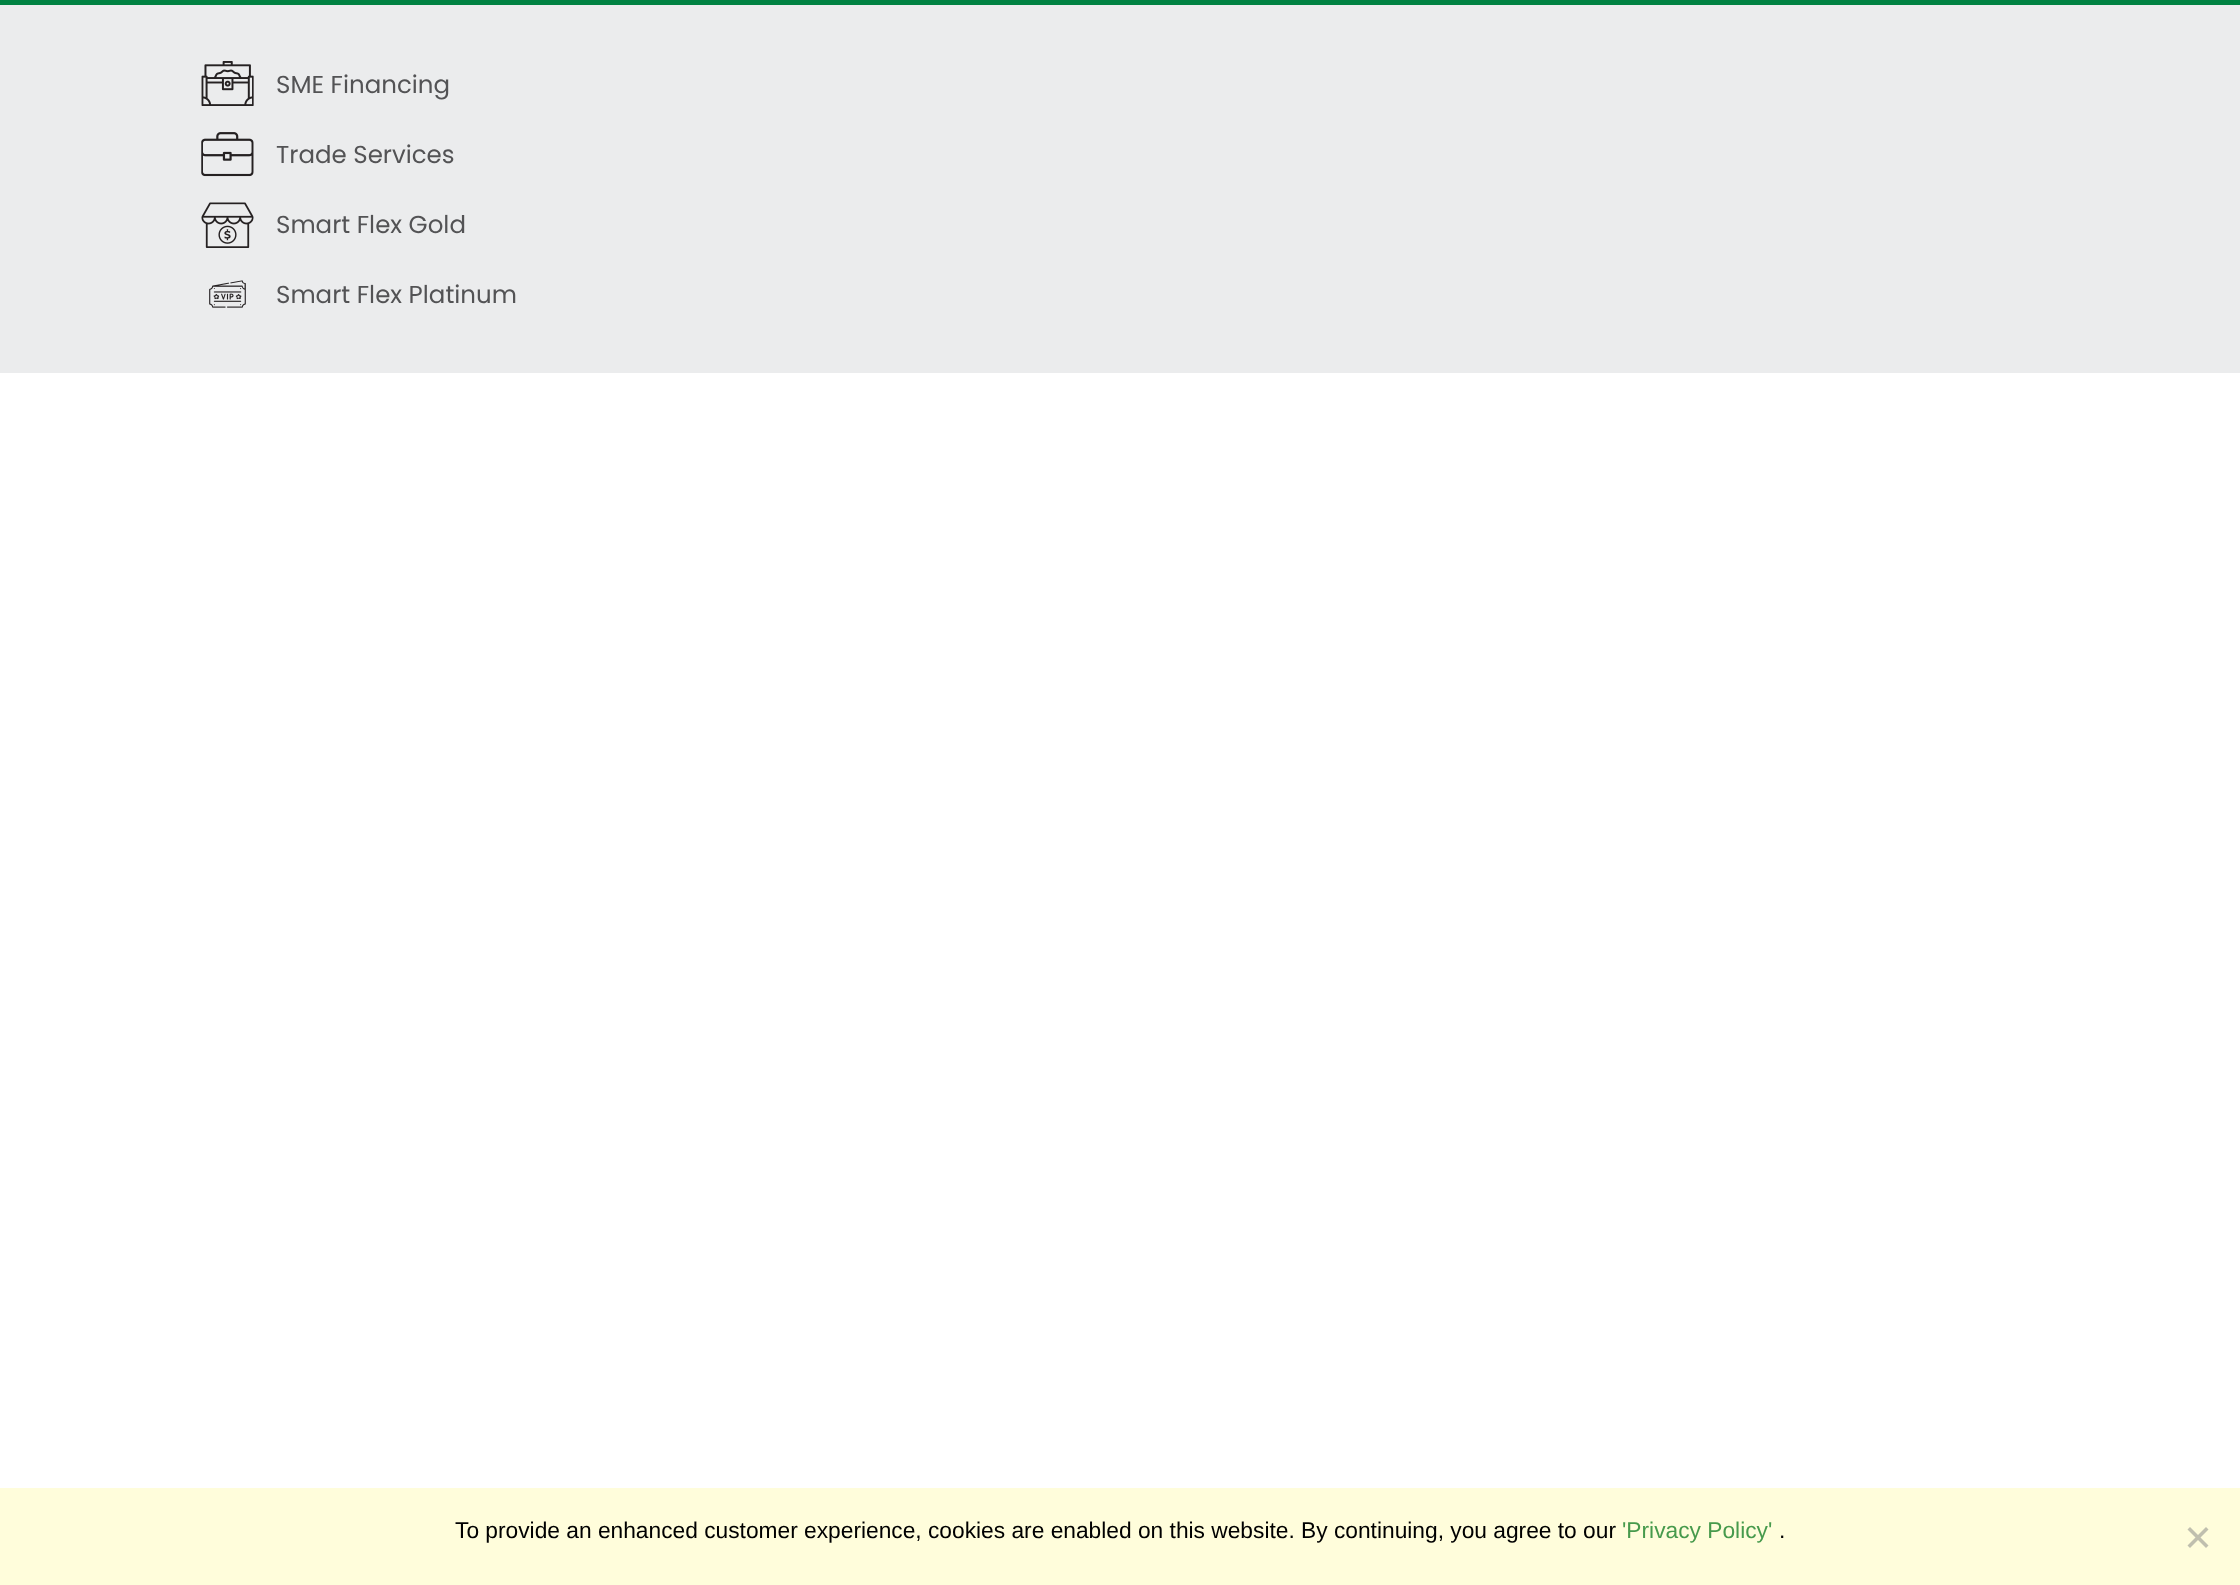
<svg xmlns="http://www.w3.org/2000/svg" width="2240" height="1585">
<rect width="100%" height="100%" fill="#fff"/>
<rect y="5" width="2240" height="368" fill="#ebeced"/>
<rect width="2240" height="5" fill="#008242"/>
<image x="201" y="61" width="53" height="45" href="media/1.png"/>
<text x="276" y="93" style="font-family:Poppins;font-size:24.5px;fill:#535355">SME Financing</text>
<image x="201" y="132" width="53" height="45" href="media/2.png"/>
<text x="276" y="163" style="font-family:Poppins;font-size:24.5px;fill:#535355">Trade Services</text>
<image x="201" y="202" width="53" height="46" href="media/3.png"/>
<text x="276" y="233" style="font-family:Poppins;font-size:24.5px;fill:#535355">Smart Flex Gold</text>
<image x="209" y="280" width="37" height="28" href="media/4.png"/>
<text x="276" y="303" style="font-family:Poppins;font-size:24.5px;fill:#535355">Smart Flex Platinum</text>
<rect y="1488" width="2240" height="97" fill="#fffddb"/>
<text x="455" y="1538" style="font-family:Liberation Sans;font-size:22.75px;fill:#000">To provide an enhanced customer experience, cookies are enabled on this website. By continuing, you agree to our</text>
<text x="1622" y="1538" style="font-family:Liberation Sans;font-size:22.75px;fill:#479a4c">'Privacy Policy'</text>
<text x="1779" y="1538" style="font-family:Liberation Sans;font-size:22.75px;fill:#000">.</text>
<path d="M2206 1527l2.5 2.5l-18.5 18.5l-2.5-2.5z" fill="#c0bfae"/>
<path d="M2187.5 1529.5l2.5-2.5l18.5 18.5l-2.5 2.5z" fill="#c0bfae"/>
</svg>
